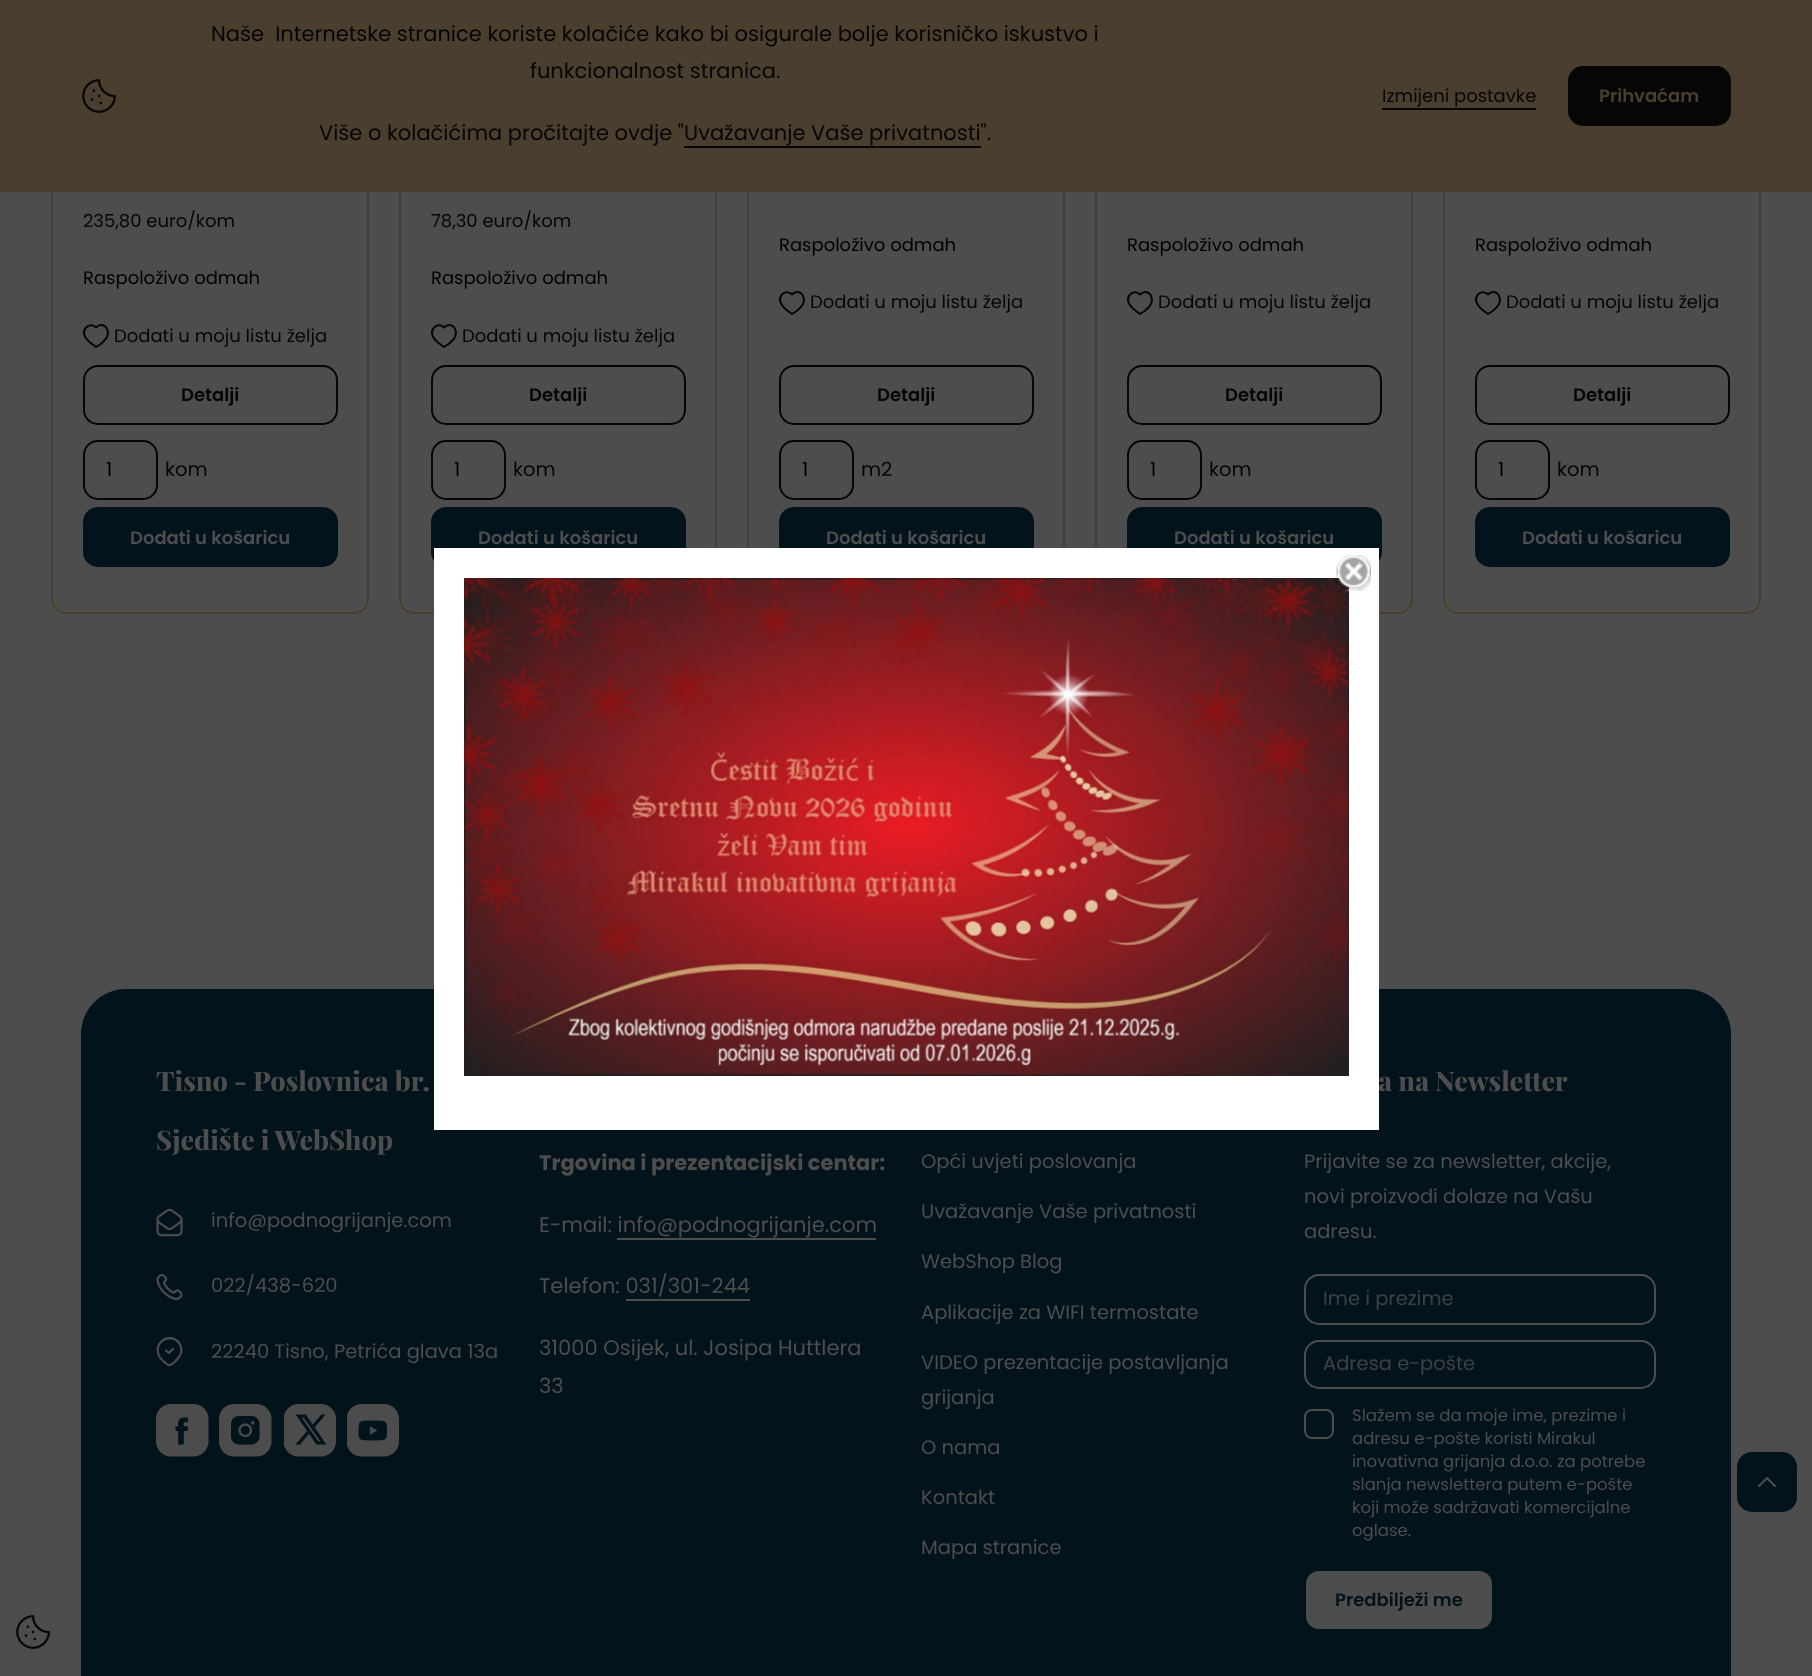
<svg xmlns="http://www.w3.org/2000/svg" width="1812" height="1676">
<rect width="100%" height="100%" fill="#4d4d4d"/>
<rect x="52" y="-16" width="316" height="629" rx="14" fill="none" stroke="#4a3f2f" stroke-width="2"/>
<rect x="400" y="-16" width="316" height="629" rx="14" fill="none" stroke="#4a3f2f" stroke-width="2"/>
<rect x="748" y="-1" width="316" height="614" fill="none" stroke="#4a3f2f" stroke-width="2"/>
<rect x="1096" y="-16" width="316" height="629" rx="14" fill="none" stroke="#4a3f2f" stroke-width="2"/>
<rect x="1444" y="-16" width="316" height="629" rx="14" fill="none" stroke="#4a3f2f" stroke-width="2"/>
<rect width="1812" height="192" fill="#4a3f2f"/>
<image x="82" y="79" width="34" height="34" href="media/1.png"/>
<text x="211" y="41" style="font-family:Poppins;font-size:21px;fill:#060606" xml:space="preserve">Naše  Internetske stranice koriste kolačiće kako bi osigurale bolje korisničko iskustvo i</text>
<text x="530" y="78" style="font-family:Poppins;font-size:21px;fill:#060606">funkcionalnost stranica.</text>
<text x="319" y="140" style="font-family:Poppins;font-size:21px;fill:#060606">Više o kolačićima pročitajte ovdje "Uvažavanje Vaše privatnosti".</text>
<rect x="684" y="146" width="297" height="2" fill="#060606"/>
<text x="1382" y="102" style="font-family:Poppins;font-size:18px;fill:#060606">Izmijeni postavke</text>
<rect x="1382" y="108" width="154" height="2" fill="#060606"/>
<rect x="1569" y="67" width="161" height="58" rx="14" fill="#060606" stroke="#060606" stroke-width="2"/>
<text x="1599" y="102" style="font-family:Poppins;font-size:18px;font-weight:600;fill:#4a3f2f">Prihvaćam</text>
<text x="83" y="227" style="font-family:Poppins;font-size:18px;fill:#060606">235,80 euro/kom</text>
<text x="83" y="284" style="font-family:Poppins;font-size:18px;fill:#000">Raspoloživo odmah</text>
<path d="M101 325c5.5 0 8 6 6.5 10.5c-1 4-4.5 6.5-7.5 9l-4 2.5l-6-4.5c-14-11.5 0-22 6-15c1-1 2.5-2.5 5-2.5z" fill="none" stroke="#060606" stroke-width="2" stroke-linecap="round" stroke-linejoin="round"/>
<text x="114" y="342" style="font-family:Poppins;font-size:18px;fill:#060606">Dodati u moju listu želja</text>
<rect x="84" y="366" width="253" height="58" rx="14" fill="none" stroke="#060606" stroke-width="2"/>
<text x="181" y="401" style="font-family:Poppins;font-size:18px;font-weight:600;fill:#060606">Detalji</text>
<rect x="84" y="441" width="73" height="58" rx="14" fill="none" stroke="#060606" stroke-width="2"/>
<text x="106" y="476" style="font-family:Poppins;font-size:19.5px;fill:#000">1</text>
<text x="165" y="476" style="font-family:Poppins;font-size:19.5px;fill:#060606">kom</text>
<rect x="84" y="508" width="253" height="58" rx="14" fill="#03131c" stroke="#03131c" stroke-width="2"/>
<text x="130" y="544" style="font-family:Poppins;font-size:18px;font-weight:600;fill:#4d4d4d">Dodati u košaricu</text>
<text x="431" y="227" style="font-family:Poppins;font-size:18px;fill:#060606">78,30 euro/kom</text>
<text x="431" y="284" style="font-family:Poppins;font-size:18px;fill:#000">Raspoloživo odmah</text>
<path d="M449 325c5.5 0 8 6 6.5 10.5c-1 4-4.5 6.5-7.5 9l-4 2.5l-6-4.5c-14-11.5 0-22 6-15c1-1 2.5-2.5 5-2.5z" fill="none" stroke="#060606" stroke-width="2" stroke-linecap="round" stroke-linejoin="round"/>
<text x="462" y="342" style="font-family:Poppins;font-size:18px;fill:#060606">Dodati u moju listu želja</text>
<rect x="432" y="366" width="253" height="58" rx="14" fill="none" stroke="#060606" stroke-width="2"/>
<text x="529" y="401" style="font-family:Poppins;font-size:18px;font-weight:600;fill:#060606">Detalji</text>
<rect x="432" y="441" width="73" height="58" rx="14" fill="none" stroke="#060606" stroke-width="2"/>
<text x="454" y="476" style="font-family:Poppins;font-size:19.5px;fill:#000">1</text>
<text x="513" y="476" style="font-family:Poppins;font-size:19.5px;fill:#060606">kom</text>
<rect x="432" y="508" width="253" height="58" rx="14" fill="#03131c" stroke="#03131c" stroke-width="2"/>
<text x="478" y="544" style="font-family:Poppins;font-size:18px;font-weight:600;fill:#4d4d4d">Dodati u košaricu</text>
<text x="779" y="251" style="font-family:Poppins;font-size:18px;fill:#000">Raspoloživo odmah</text>
<path d="M797 292c5.5 0 8 6 6.5 10.5c-1 4-4.5 6.5-7.5 9l-4 2.5l-6-4.5c-14-11.5 0-22 6-15c1-1 2.5-2.5 5-2.5z" fill="none" stroke="#060606" stroke-width="2" stroke-linecap="round" stroke-linejoin="round"/>
<text x="810" y="308" style="font-family:Poppins;font-size:18px;fill:#060606">Dodati u moju listu želja</text>
<rect x="780" y="366" width="253" height="58" rx="14" fill="none" stroke="#060606" stroke-width="2"/>
<text x="877" y="401" style="font-family:Poppins;font-size:18px;font-weight:600;fill:#060606">Detalji</text>
<rect x="780" y="441" width="73" height="58" rx="14" fill="none" stroke="#060606" stroke-width="2"/>
<text x="802" y="476" style="font-family:Poppins;font-size:19.5px;fill:#000">1</text>
<text x="861" y="476" style="font-family:Poppins;font-size:19.5px;fill:#060606">m2</text>
<rect x="780" y="508" width="253" height="58" rx="14" fill="#03131c" stroke="#03131c" stroke-width="2"/>
<text x="826" y="544" style="font-family:Poppins;font-size:18px;font-weight:600;fill:#4d4d4d">Dodati u košaricu</text>
<text x="1127" y="251" style="font-family:Poppins;font-size:18px;fill:#000">Raspoloživo odmah</text>
<path d="M1145 292c5.5 0 8 6 6.5 10.5c-1 4-4.5 6.5-7.5 9l-4 2.5l-6-4.5c-14-11.5 0-22 6-15c1-1 2.5-2.5 5-2.5z" fill="none" stroke="#060606" stroke-width="2" stroke-linecap="round" stroke-linejoin="round"/>
<text x="1158" y="308" style="font-family:Poppins;font-size:18px;fill:#060606">Dodati u moju listu želja</text>
<rect x="1128" y="366" width="253" height="58" rx="14" fill="none" stroke="#060606" stroke-width="2"/>
<text x="1225" y="401" style="font-family:Poppins;font-size:18px;font-weight:600;fill:#060606">Detalji</text>
<rect x="1128" y="441" width="73" height="58" rx="14" fill="none" stroke="#060606" stroke-width="2"/>
<text x="1150" y="476" style="font-family:Poppins;font-size:19.5px;fill:#000">1</text>
<text x="1209" y="476" style="font-family:Poppins;font-size:19.5px;fill:#060606">kom</text>
<rect x="1128" y="508" width="253" height="58" rx="14" fill="#03131c" stroke="#03131c" stroke-width="2"/>
<text x="1174" y="544" style="font-family:Poppins;font-size:18px;font-weight:600;fill:#4d4d4d">Dodati u košaricu</text>
<text x="1475" y="251" style="font-family:Poppins;font-size:18px;fill:#000">Raspoloživo odmah</text>
<path d="M1493 292c5.5 0 8 6 6.5 10.5c-1 4-4.5 6.5-7.5 9l-4 2.5l-6-4.5c-14-11.5 0-22 6-15c1-1 2.5-2.5 5-2.5z" fill="none" stroke="#060606" stroke-width="2" stroke-linecap="round" stroke-linejoin="round"/>
<text x="1506" y="308" style="font-family:Poppins;font-size:18px;fill:#060606">Dodati u moju listu želja</text>
<rect x="1476" y="366" width="253" height="58" rx="14" fill="none" stroke="#060606" stroke-width="2"/>
<text x="1573" y="401" style="font-family:Poppins;font-size:18px;font-weight:600;fill:#060606">Detalji</text>
<rect x="1476" y="441" width="73" height="58" rx="14" fill="none" stroke="#060606" stroke-width="2"/>
<text x="1498" y="476" style="font-family:Poppins;font-size:19.5px;fill:#000">1</text>
<text x="1557" y="476" style="font-family:Poppins;font-size:19.5px;fill:#060606">kom</text>
<rect x="1476" y="508" width="253" height="58" rx="14" fill="#03131c" stroke="#03131c" stroke-width="2"/>
<text x="1522" y="544" style="font-family:Poppins;font-size:18px;font-weight:600;fill:#4d4d4d">Dodati u košaricu</text>
<rect x="81" y="989" width="1650" height="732" rx="45" fill="#03131c"/>
<text x="156" y="1091" style="font-family:Playfair Display;font-size:27px;font-weight:800;fill:#4d4d4d">Tisno - Poslovnica br.</text>
<text x="156" y="1150" style="font-family:Playfair Display;font-size:27px;font-weight:800;fill:#4d4d4d">Sjedište i WebShop</text>
<image x="156" y="1208" width="27" height="29" href="media/2.png"/>
<text x="211" y="1227" style="font-family:Poppins;font-size:19.5px;fill:#4d4d4d">info@podnogrijanje.com</text>
<image x="156" y="1274" width="27" height="27" href="media/3.png"/>
<text x="211" y="1292" style="font-family:Poppins;font-size:19.5px;fill:#4d4d4d">022/438-620</text>
<path d="M166 1350.5l3 2.5l4-4m5-7.5c4 4 4.5 10.5 1.5 15l-4 4.5c-3 3-5.5 6-9.5 2.5c-2.5-2-6.5-6-7.5-9c-5-11.5 10-22 19.5-13z" fill="none" stroke="#4d4d4d" stroke-width="2.2" stroke-linecap="round" stroke-linejoin="round"/>
<text x="211" y="1358" style="font-family:Poppins;font-size:19.5px;fill:#4d4d4d">22240 Tisno, Petrića glava 13a</text>
<image x="156" y="1404" width="53" height="53" href="media/4.png"/>
<image x="219" y="1404" width="53" height="53" href="media/5.png"/>
<image x="284" y="1404" width="52" height="53" href="media/6.png"/>
<image x="347" y="1404" width="52" height="53" href="media/7.png"/>
<text x="539" y="1170" style="font-family:Poppins;font-size:21px;font-weight:bold;fill:#4d4d4d">Trgovina i prezentacijski centar:</text>
<text x="539" y="1232" style="font-family:Poppins;font-size:21px;fill:#4d4d4d">E-mail: info@podnogrijanje.com</text>
<rect x="617" y="1238" width="259" height="2" fill="#4d4d4d"/>
<text x="539" y="1293" style="font-family:Poppins;font-size:21px;fill:#4d4d4d">Telefon: 031/301-244</text>
<rect x="626" y="1299" width="124" height="2" fill="#4d4d4d"/>
<text x="539" y="1355" style="font-family:Poppins;font-size:21px;fill:#4d4d4d">31000 Osijek, ul. Josipa Huttlera</text>
<text x="539" y="1393" style="font-family:Poppins;font-size:21px;fill:#4d4d4d">33</text>
<text x="921" y="1168" style="font-family:Poppins;font-size:19.5px;fill:#4d4d4d">Opći uvjeti poslovanja</text>
<text x="921" y="1218" style="font-family:Poppins;font-size:19.5px;fill:#4d4d4d">Uvažavanje Vaše privatnosti</text>
<text x="921" y="1268" style="font-family:Poppins;font-size:19.5px;fill:#4d4d4d">WebShop Blog</text>
<text x="921" y="1319" style="font-family:Poppins;font-size:19.5px;fill:#4d4d4d">Aplikacije za WIFI termostate</text>
<text x="921" y="1369" style="font-family:Poppins;font-size:19.5px;fill:#4d4d4d">VIDEO prezentacije postavljanja</text>
<text x="921" y="1404" style="font-family:Poppins;font-size:19.5px;fill:#4d4d4d">grijanja</text>
<text x="921" y="1454" style="font-family:Poppins;font-size:19.5px;fill:#4d4d4d">O nama</text>
<text x="921" y="1504" style="font-family:Poppins;font-size:19.5px;fill:#4d4d4d">Kontakt</text>
<text x="921" y="1554" style="font-family:Poppins;font-size:19.5px;fill:#4d4d4d">Mapa stranice</text>
<text x="1378" y="1091" style="font-family:Playfair Display;font-size:27px;font-weight:800;fill:#4d4d4d">a na Newsletter</text>
<text x="1304" y="1168" style="font-family:Poppins;font-size:19.5px;fill:#4d4d4d">Prijavite se za newsletter, akcije,</text>
<text x="1304" y="1203" style="font-family:Poppins;font-size:19.5px;fill:#4d4d4d">novi proizvodi dolaze na Vašu</text>
<text x="1304" y="1238" style="font-family:Poppins;font-size:19.5px;fill:#4d4d4d">adresu.</text>
<rect x="1305" y="1275" width="350" height="49" rx="14" fill="none" stroke="#4d4d4d" stroke-width="2"/>
<text x="1323" y="1305" style="font-family:Poppins;font-size:19.5px;fill:#3e4143">Ime i prezime</text>
<rect x="1305" y="1341" width="350" height="47" rx="14" fill="none" stroke="#4d4d4d" stroke-width="2"/>
<text x="1323" y="1370" style="font-family:Poppins;font-size:19.5px;fill:#3e4143">Adresa e-pošte</text>
<rect x="1305" y="1410" width="28" height="28" rx="7" fill="none" stroke="#4d4d4d" stroke-width="2"/>
<text x="1352" y="1421" style="font-family:Poppins;font-size:16.5px;fill:#4d4d4d">Slažem se da moje ime, prezime i</text>
<text x="1352" y="1444" style="font-family:Poppins;font-size:16.5px;fill:#4d4d4d">adresu e-pošte koristi Mirakul</text>
<text x="1352" y="1467" style="font-family:Poppins;font-size:16.5px;fill:#4d4d4d">inovativna grijanja d.o.o. za potrebe</text>
<text x="1352" y="1490" style="font-family:Poppins;font-size:16.5px;fill:#4d4d4d">slanja newslettera putem e-pošte</text>
<text x="1352" y="1513" style="font-family:Poppins;font-size:16.5px;fill:#4d4d4d">koji može sadržavati komercijalne</text>
<text x="1352" y="1536" style="font-family:Poppins;font-size:16.5px;fill:#4d4d4d">oglase.</text>
<rect x="1305" y="1570" width="188" height="60" rx="14" fill="#4d4d4d" stroke="#03131c" stroke-width="2"/>
<text x="1335" y="1606" style="font-family:Poppins;font-size:18px;font-weight:600;fill:#03131c">Predbilježi me</text>
<rect x="1738" y="1453" width="58" height="58" rx="14" fill="#03131c" stroke="#03131c" stroke-width="2"/>
<image x="1758" y="1477" width="18" height="10" href="media/8.png"/>
<rect x="434" y="548" width="945" height="582" fill="#fff"/>
<image x="464" y="578" width="885" height="498" href="media/10.png"/>
<image x="1336" y="555" width="35" height="37" href="media/9.png"/>
<image x="16" y="1615" width="34" height="34" href="media/11.png"/>
</svg>
